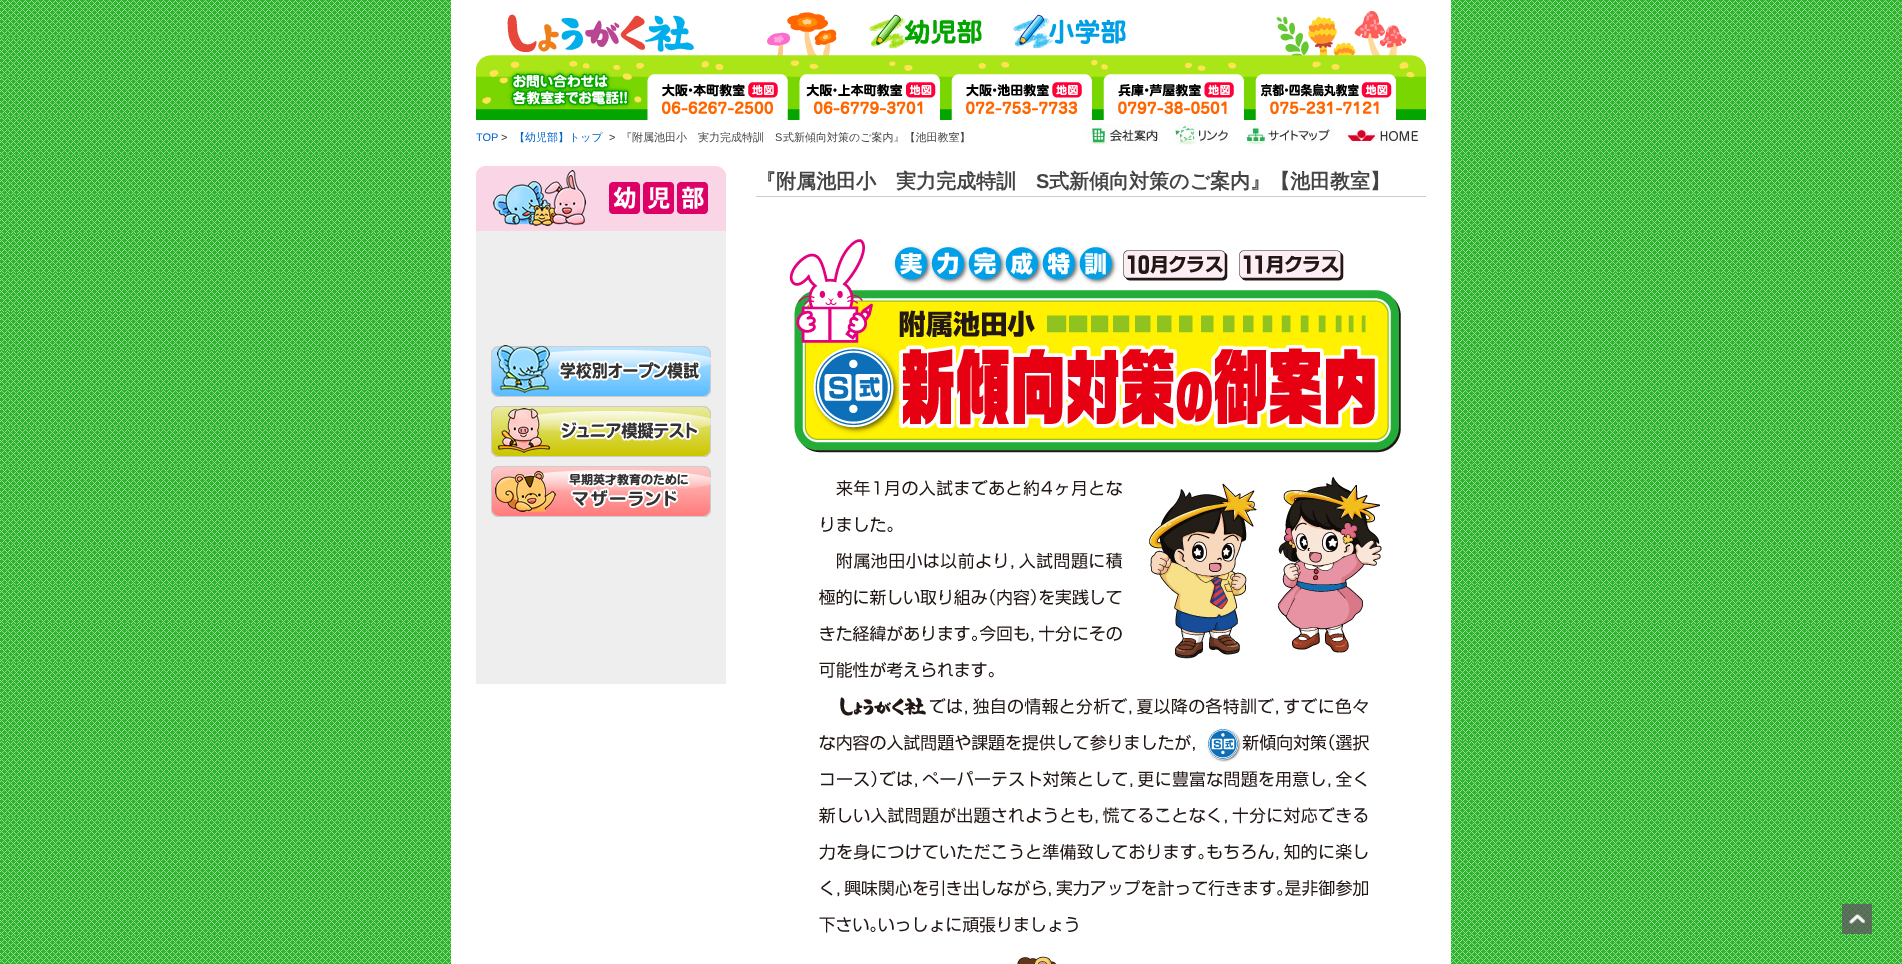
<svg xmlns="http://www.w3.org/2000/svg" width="1902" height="964">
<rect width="100%" height="100%" fill="#fff"/>
<image x="0" y="0" width="1902" height="964" href="media/1.png"/>
<image x="476" y="11" width="950" height="109" href="media/2.png"/>
<text x="476" y="141" style="font-family:Liberation Sans;font-size:11px;fill:#06c">TOP</text>
<text x="501" y="141" style="font-family:Liberation Sans;font-size:11px;fill:#444">&gt;</text>
<text x="514" y="141" style="font-family:WenQuanYi Zen Hei;font-size:11px;font-weight:500;fill:#06c">【幼児部】トップ</text>
<text x="609" y="141" style="font-family:Liberation Sans;font-size:11px;fill:#444">&gt;</text>
<text x="621" y="141" style="font-family:WenQuanYi Zen Hei;font-size:11px;font-weight:500;fill:#444">『附属池田小　実力完成特訓</text>
<text x="775" y="141" style="font-family:Liberation Sans;font-size:11px;fill:#444">S</text>
<text x="783" y="141" style="font-family:WenQuanYi Zen Hei;font-size:11px;font-weight:500;fill:#444">式新傾向対策のご案内』【池田教室】</text>
<image x="1085" y="124" width="77" height="22" href="media/3.png"/>
<image x="1175" y="124" width="55" height="22" href="media/4.png"/>
<image x="1246" y="124" width="88" height="22" href="media/5.png"/>
<image x="1347" y="124" width="72" height="22" href="media/6.png"/>
<rect x="476" y="231" width="250" height="453" fill="#eee"/>
<image x="476" y="166" width="250" height="65" href="media/7.png"/>
<image x="491" y="345" width="220" height="52" href="media/8.png"/>
<image x="491" y="406" width="220" height="51" href="media/9.png"/>
<image x="491" y="466" width="220" height="51" href="media/10.png"/>
<rect x="756" y="196" width="670" height="1" fill="#ccc"/>
<text x="756" y="188" style="font-family:WenQuanYi Zen Hei;font-size:20px;font-weight:bold;fill:#444">『附属池田小　実力完成特訓</text>
<text x="1036" y="188" style="font-family:Liberation Sans;font-size:20px;font-weight:bold;fill:#444">S</text>
<text x="1049" y="188" style="font-family:WenQuanYi Zen Hei;font-size:20px;font-weight:bold;fill:#444">式新傾向対策のご案内』【池田教室】</text>
<image x="789" y="239" width="612" height="725" href="media/11.png"/>
<image x="1842" y="904" width="30" height="30" href="media/12.png"/>
</svg>
